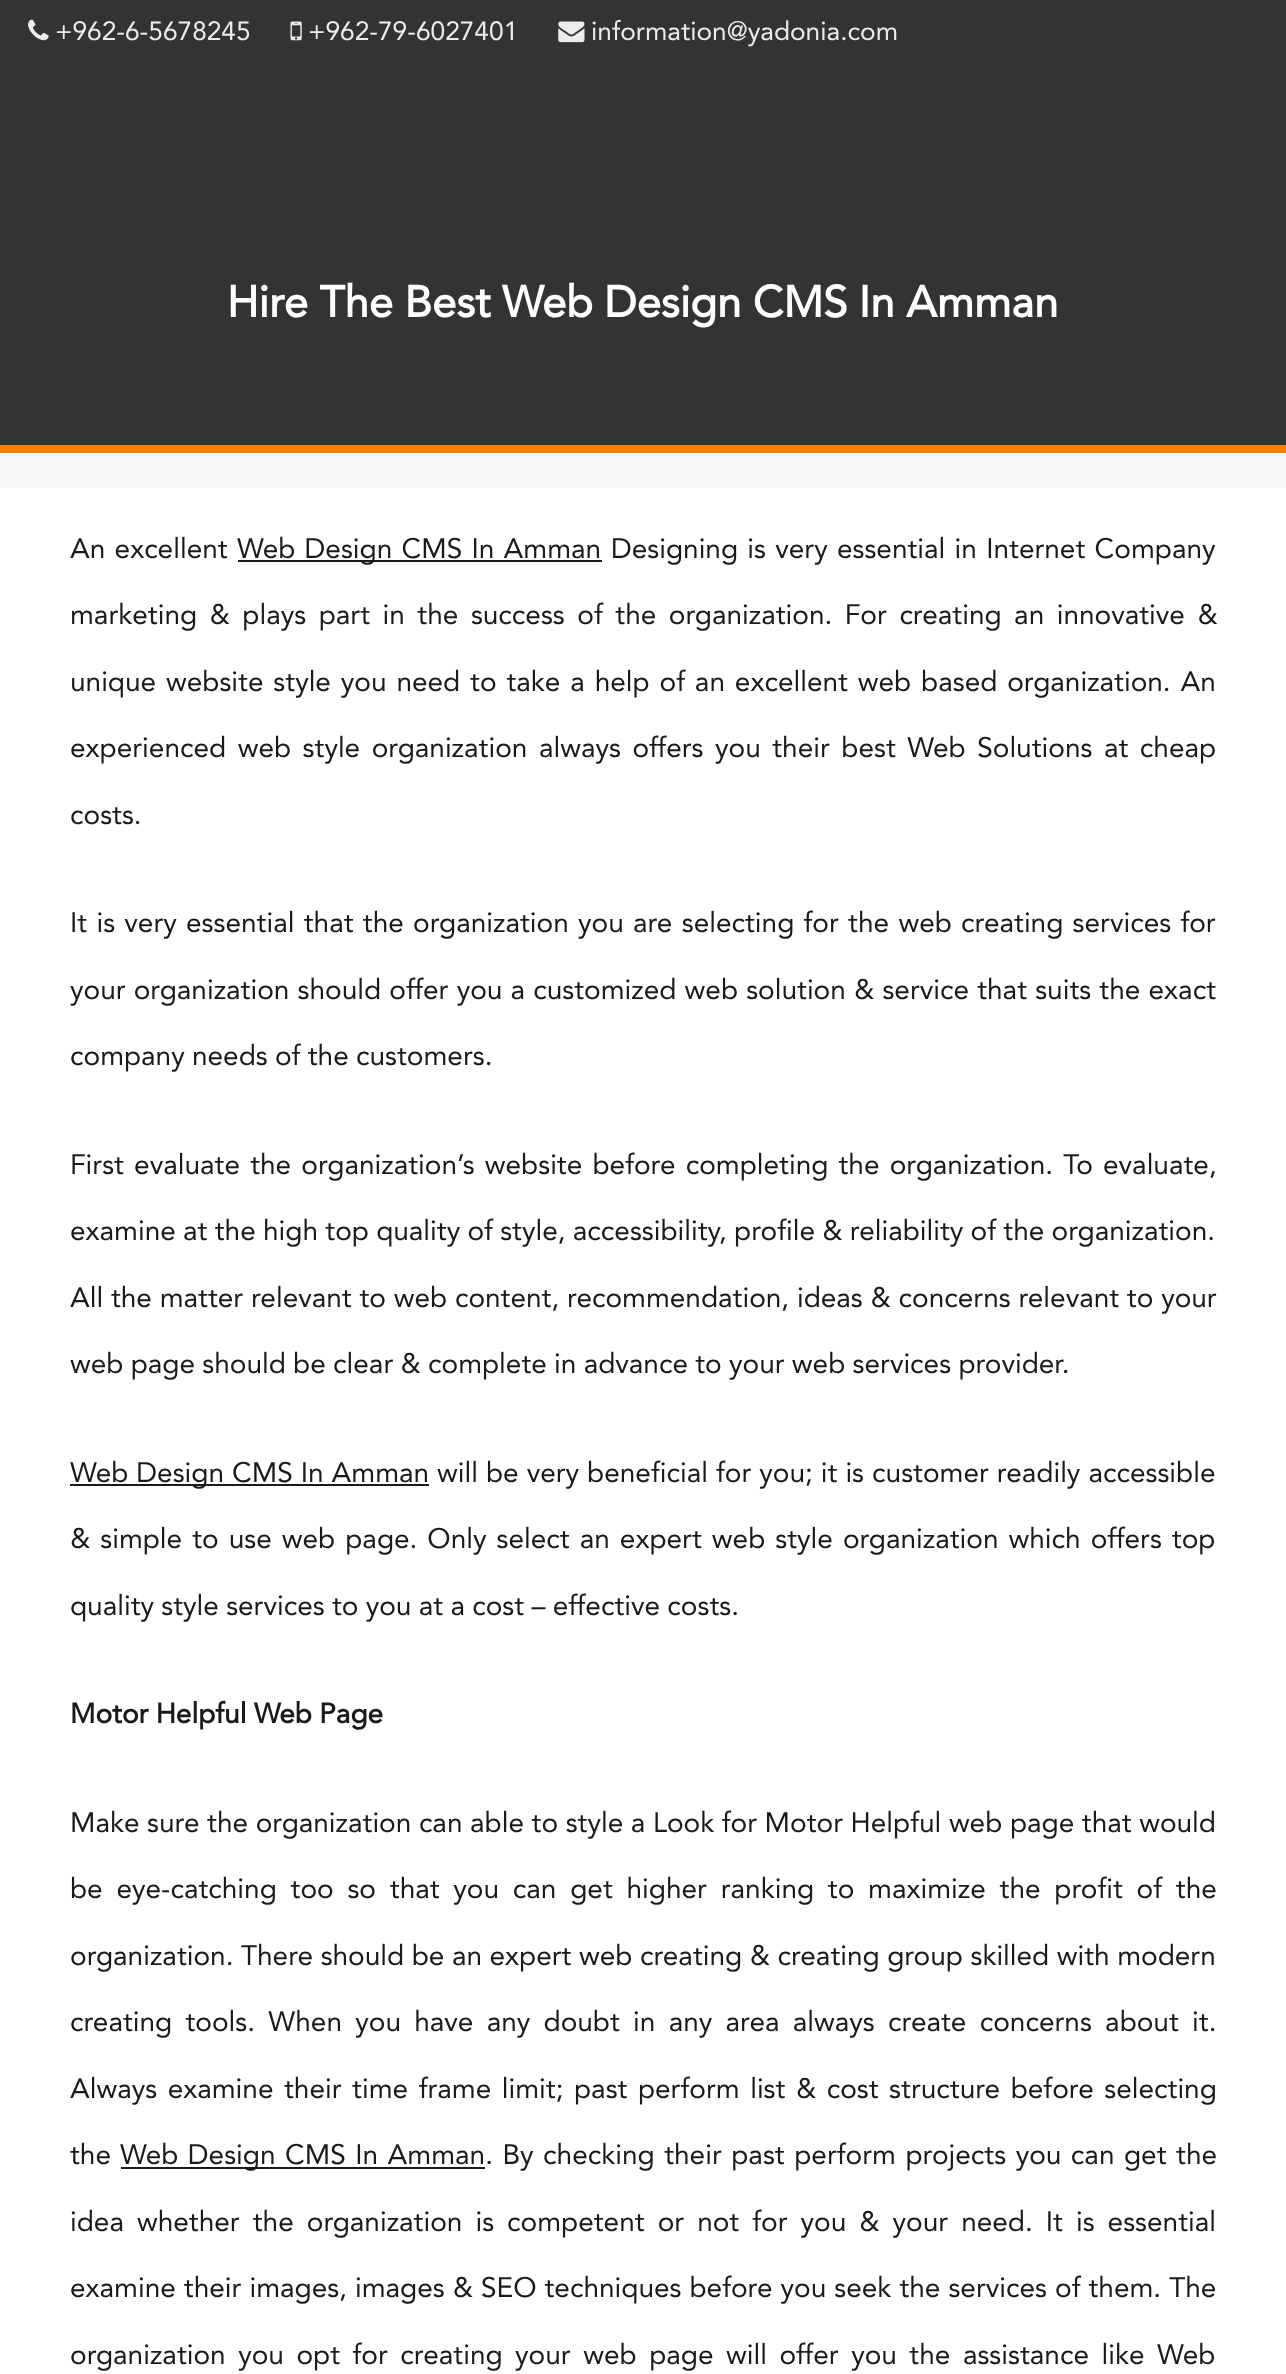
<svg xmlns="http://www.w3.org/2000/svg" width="1286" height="2374">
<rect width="100%" height="100%" fill="#fff"/>
<rect width="1286" height="445" fill="#343233"/>
<image x="28" y="19" width="21" height="22" href="media/1.png"/>
<text x="55" y="40" style="font-family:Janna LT;font-size:26.25px;fill:#eeecea">+962-6-5678245</text>
<image x="290" y="21" width="12" height="20" href="media/2.png"/>
<text x="308" y="40" style="font-family:Janna LT;font-size:26.25px;fill:#eeecea">+962-79-6027401</text>
<image x="558" y="21" width="27" height="22" href="media/3.png"/>
<text x="591" y="40" style="font-family:Janna LT;font-size:26.25px;fill:#eeecea">information@yadonia.com</text>
<rect y="445" width="1286" height="8" fill="#f48200"/>
<text x="227" y="317" style="font-family:Janna LT;font-size:43.75px;font-weight:bold;fill:#fff">Hire The Best Web Design CMS In Amman</text>
<rect y="453" width="1286" height="35" fill="#f7f7f7"/>
<text x="70" y="558" word-spacing="2" style="font-family:Janna LT;font-size:28px;fill:#1a1a1a">An excellent</text>
<rect x="238" y="560" width="364" height="2" fill="#1a1a1a"/>
<text x="237" y="558" word-spacing="2" style="font-family:Janna LT;font-size:28px;fill:#1a1a1a">Web Design CMS In Amman</text>
<text x="611" y="558" word-spacing="2" style="font-family:Janna LT;font-size:28px;fill:#1a1a1a">Designing is very essential in Internet Company</text>
<text x="70" y="624" word-spacing="5.25" style="font-family:Janna LT;font-size:28px;fill:#1a1a1a">marketing &amp; plays part in the success of the organization. For creating an innovative &amp;</text>
<text x="70" y="691" word-spacing="2.6" style="font-family:Janna LT;font-size:28px;fill:#1a1a1a">unique website style you need to take a help of an excellent web based organization. An</text>
<text x="70" y="757" word-spacing="4.25" style="font-family:Janna LT;font-size:28px;fill:#1a1a1a">experienced web style organization always offers you their best Web Solutions at cheap</text>
<text x="70" y="824" style="font-family:Janna LT;font-size:28px;fill:#1a1a1a">costs.</text>
<text x="70" y="932" word-spacing="2" style="font-family:Janna LT;font-size:28px;fill:#1a1a1a">It is very essential that the organization you are selecting for the web creating services for</text>
<text x="70" y="999" word-spacing="0.9" style="font-family:Janna LT;font-size:28px;fill:#1a1a1a">your organization should offer you a customized web solution &amp; service that suits the exact</text>
<text x="70" y="1065" style="font-family:Janna LT;font-size:28px;fill:#1a1a1a">company needs of the customers.</text>
<text x="70" y="1174" word-spacing="2.9" style="font-family:Janna LT;font-size:28px;fill:#1a1a1a">First evaluate the organization’s website before completing the organization. To evaluate,</text>
<text x="70" y="1240" style="font-family:Janna LT;font-size:28px;fill:#1a1a1a">examine at the high top quality of style, accessibility, profile &amp; reliability of the organization.</text>
<text x="70" y="1307" word-spacing="0.5" style="font-family:Janna LT;font-size:28px;fill:#1a1a1a">All the matter relevant to web content, recommendation, ideas &amp; concerns relevant to your</text>
<text x="70" y="1373" style="font-family:Janna LT;font-size:28px;fill:#1a1a1a">web page should be clear &amp; complete in advance to your web services provider.</text>
<rect x="70" y="1484" width="359" height="2" fill="#1a1a1a"/>
<text x="70" y="1482" word-spacing="0.75" style="font-family:Janna LT;font-size:28px;fill:#1a1a1a">Web Design CMS In Amman</text>
<text x="437" y="1482" word-spacing="0.75" style="font-family:Janna LT;font-size:28px;fill:#1a1a1a">will be very beneficial for you; it is customer readily accessible</text>
<text x="70" y="1548" word-spacing="2.75" style="font-family:Janna LT;font-size:28px;fill:#1a1a1a">&amp; simple to use web page. Only select an expert web style organization which offers top</text>
<text x="70" y="1615" style="font-family:Janna LT;font-size:28px;fill:#1a1a1a">quality style services to you at a cost – effective costs.</text>
<text x="70" y="1723" style="font-family:Janna LT;font-size:28px;font-weight:bold;fill:#1a1a1a">Motor Helpful Web Page</text>
<text x="70" y="1832" word-spacing="0.3" style="font-family:Janna LT;font-size:28px;fill:#1a1a1a">Make sure the organization can able to style a Look for Motor Helpful web page that would</text>
<text x="70" y="1898" word-spacing="6.5" style="font-family:Janna LT;font-size:28px;fill:#1a1a1a">be eye-catching too so that you can get higher ranking to maximize the profit of the</text>
<text x="70" y="1965" word-spacing="0.25" style="font-family:Janna LT;font-size:28px;fill:#1a1a1a">organization. There should be an expert web creating &amp; creating group skilled with modern</text>
<text x="70" y="2031" word-spacing="6" style="font-family:Janna LT;font-size:28px;fill:#1a1a1a">creating tools. When you have any doubt in any area always create concerns about it.</text>
<text x="70" y="2098" word-spacing="3.25" style="font-family:Janna LT;font-size:28px;fill:#1a1a1a">Always examine their time frame limit; past perform list &amp; cost structure before selecting</text>
<text x="70" y="2164" style="font-family:Janna LT;font-size:28px;fill:#1a1a1a">the</text>
<rect x="121" y="2167" width="364" height="2" fill="#1a1a1a"/>
<text x="120" y="2164" word-spacing="2.25" style="font-family:Janna LT;font-size:28px;fill:#1a1a1a">Web Design CMS In Amman. By checking their past perform projects you can get the</text>
<text x="70" y="2231" word-spacing="5.75" style="font-family:Janna LT;font-size:28px;fill:#1a1a1a">idea whether the organization is competent or not for you &amp; your need. It is essential</text>
<text x="70" y="2297" word-spacing="0.75" style="font-family:Janna LT;font-size:28px;fill:#1a1a1a">examine their images, images &amp; SEO techniques before you seek the services of them. The</text>
<text x="70" y="2364" word-spacing="5.25" style="font-family:Janna LT;font-size:28px;fill:#1a1a1a">organization you opt for creating your web page will offer you the assistance like Web</text>
</svg>
